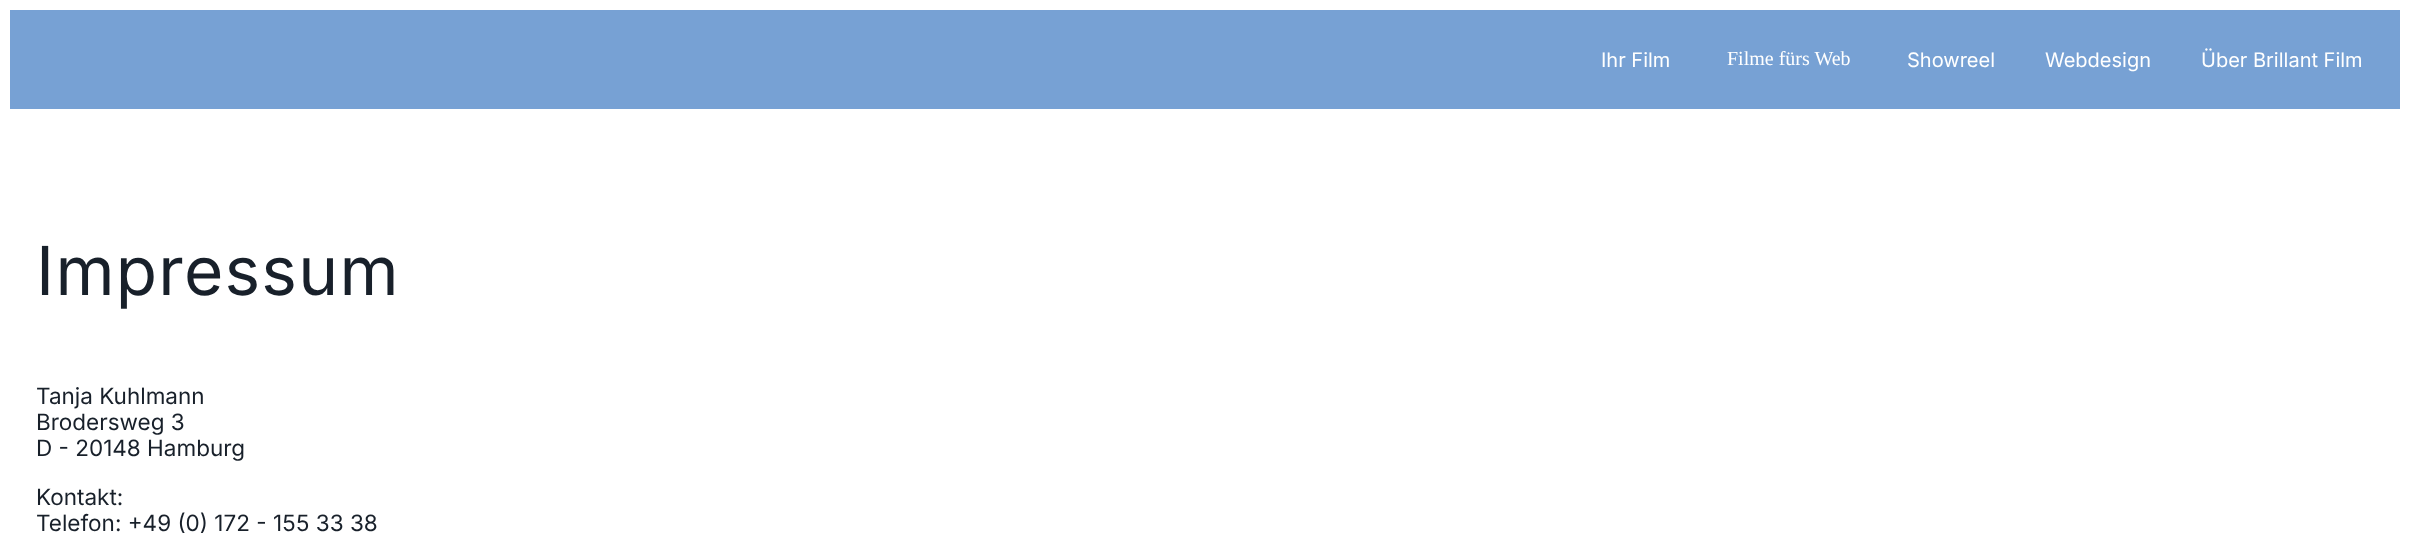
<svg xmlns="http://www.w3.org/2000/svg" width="2409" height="534">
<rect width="100%" height="100%" fill="#fff"/>
<rect x="10" y="10" width="2390" height="99" fill="#77a1d4"/>
<text x="1601" y="67" style="font-family:Inter;font-size:20px;fill:#fff">Ihr Film</text>
<text x="1727" y="65" style="font-family:Liberation Serif;font-size:20px;fill:#fff">Filme fürs Web</text>
<text x="1907" y="67" style="font-family:Inter;font-size:20px;fill:#fff">Showreel</text>
<text x="2045" y="67" style="font-family:Inter;font-size:20px;fill:#fff">Webdesign</text>
<text x="2201" y="67" style="font-family:Inter;font-size:20px;fill:#fff">Über Brillant Film</text>
<text x="36" y="295" style="font-family:Inter;font-size:67.5px;letter-spacing:1.25px;fill:#18202a">Impressum</text>
<text x="36" y="404" style="font-family:Inter;font-size:22.5px;fill:#18202a">Tanja Kuhlmann</text>
<text x="36" y="430" style="font-family:Inter;font-size:22.5px;fill:#18202a">Brodersweg 3</text>
<text x="36" y="456" style="font-family:Inter;font-size:22.5px;fill:#18202a">D - 20148 Hamburg</text>
<text x="36" y="505" style="font-family:Inter;font-size:22.5px;fill:#18202a">Kontakt:</text>
<text x="36" y="531" style="font-family:Inter;font-size:22.5px;fill:#18202a">Telefon: +49 (0) 172 - 155 33 38</text>
</svg>
